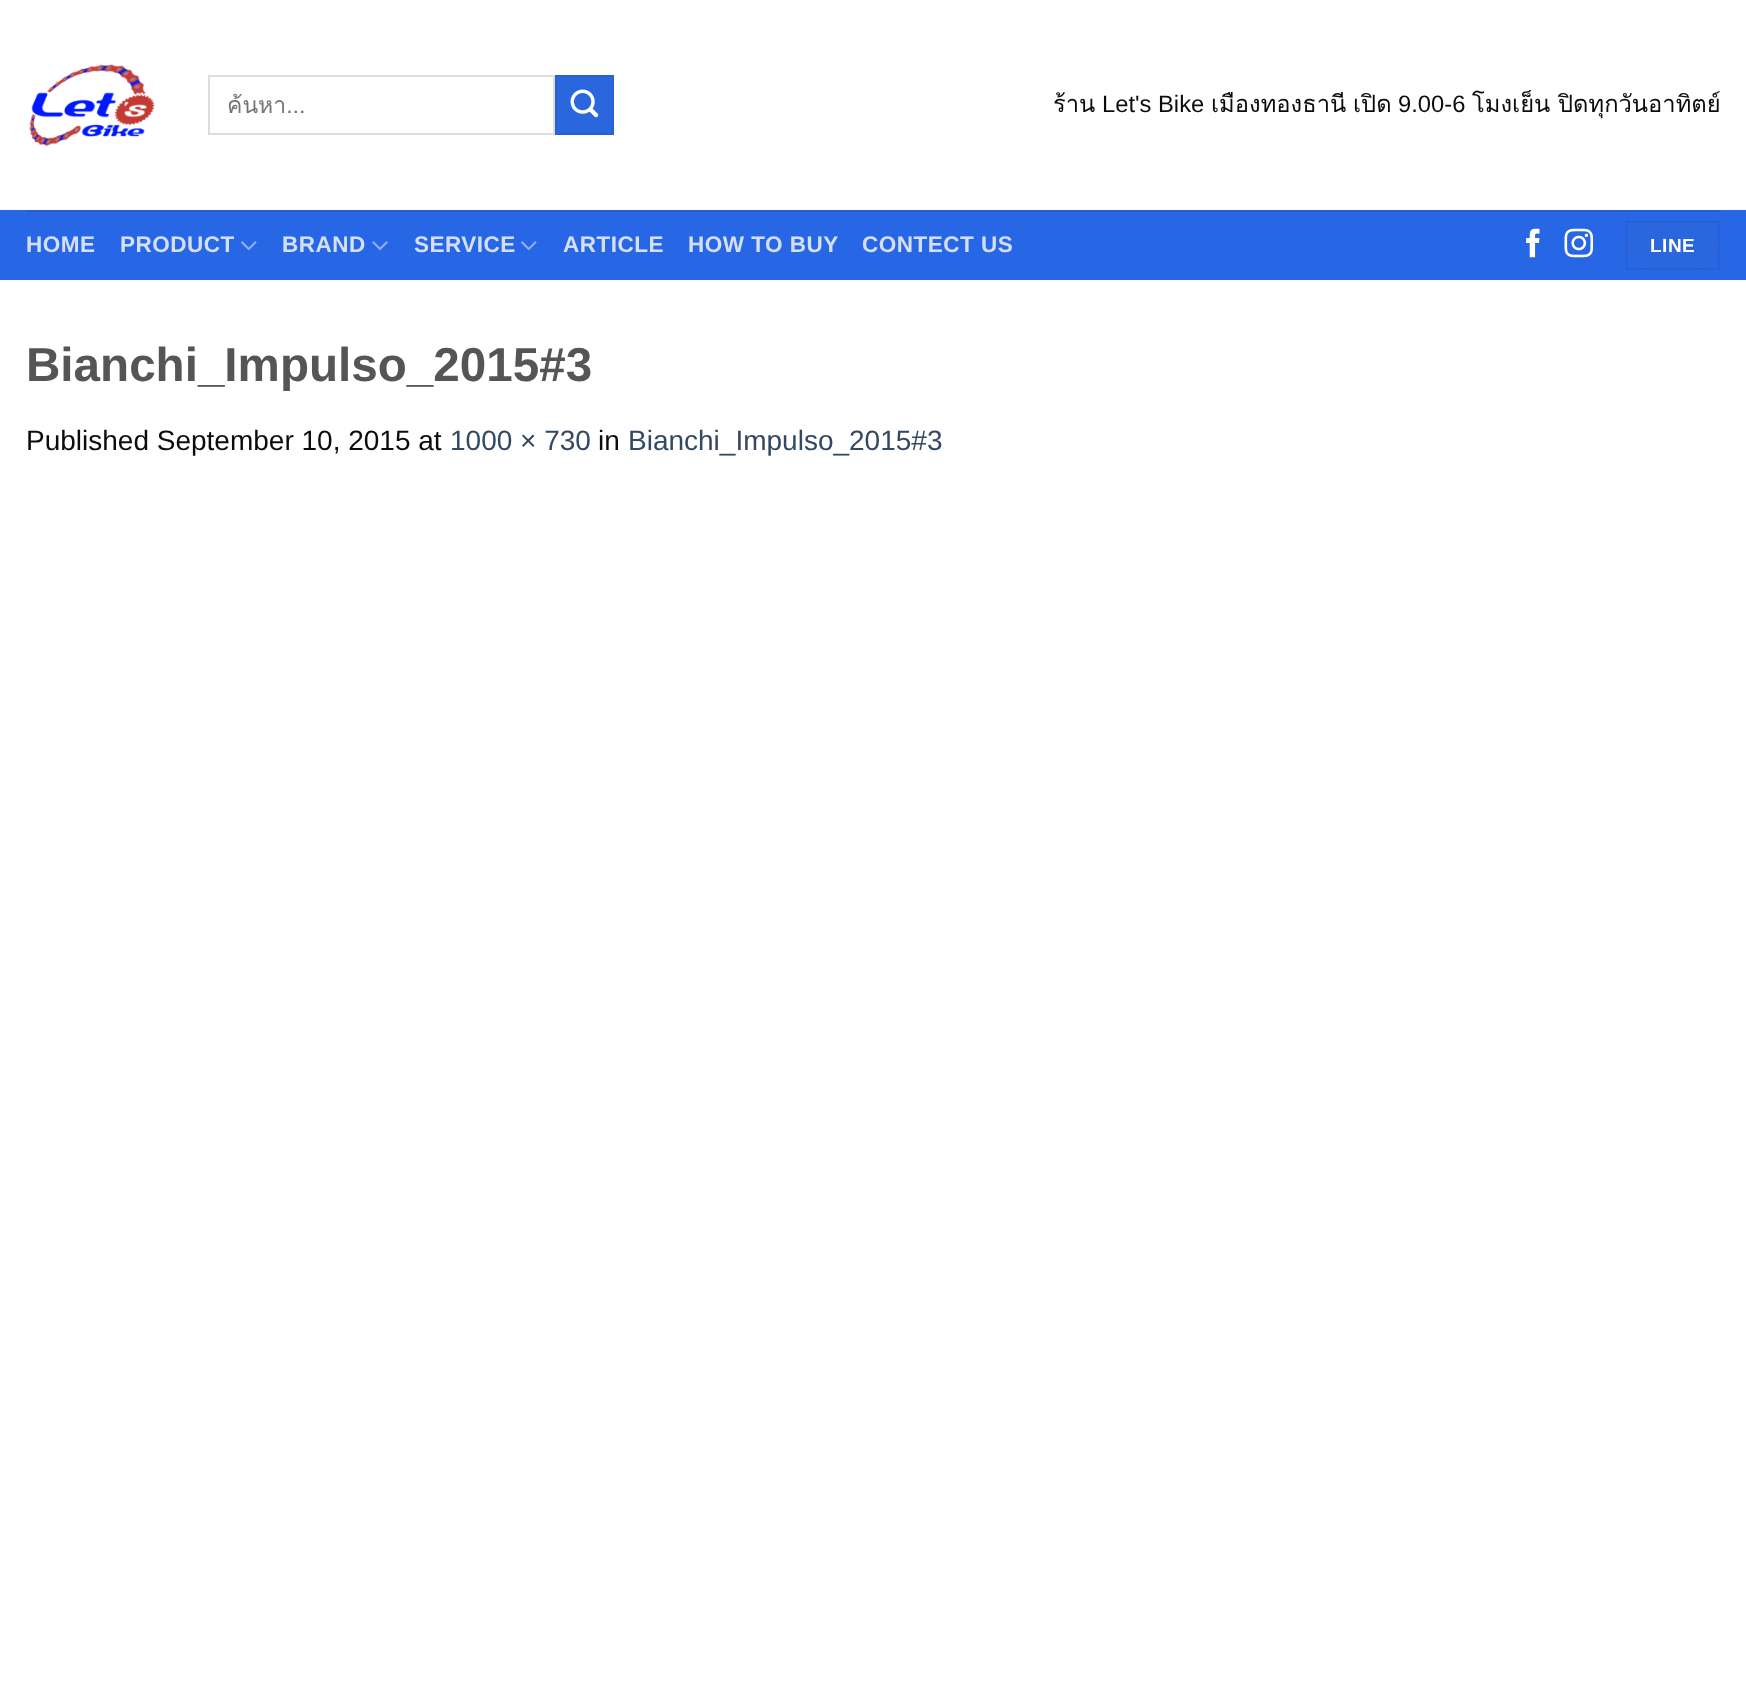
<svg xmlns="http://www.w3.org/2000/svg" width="1746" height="1681">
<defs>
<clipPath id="clip1"><rect x="228" y="88" width="301" height="36"/></clipPath>
</defs>
<rect width="100%" height="100%" fill="#fff"/>
<image x="29" y="64" width="126" height="83" href="media/1.png"/>
<rect x="209" y="76" width="345" height="58" fill="none" stroke="#ddd" stroke-width="2"/>
<g clip-path="url(#clip1)">
<text x="227" y="113" style="font-family:Loma;font-size:23px;fill:#757575">ค้นหา...</text>
</g>
<rect x="556" y="76" width="57" height="58" fill="#2a66dd" stroke="#2861d2" stroke-width="2"/>
<image x="570" y="89" width="29" height="29" href="media/2.png"/>
<text x="1053" y="112" style="font-family:Loma;font-size:23.75px;fill:#0c0c0c">ร้าน</text>
<text x="1102" y="112" style="font-family:Liberation Sans;font-size:23.75px;fill:#0c0c0c">Let's Bike</text>
<text x="1211" y="112" style="font-family:Loma;font-size:23.75px;fill:#0c0c0c">เมืองทองธานี</text>
<text x="1353" y="112" style="font-family:Loma;font-size:23.75px;fill:#0c0c0c">เปิด</text>
<text x="1398" y="112" style="font-family:Liberation Sans;font-size:23.75px;fill:#0c0c0c">9.00-6</text>
<text x="1472" y="112" style="font-family:Loma;font-size:23.75px;fill:#0c0c0c">โมงเย็น</text>
<text x="1558" y="112" style="font-family:Loma;font-size:23.75px;fill:#0c0c0c">ปิดทุกวันอาทิตย์</text>
<rect y="210" width="1746" height="70" fill="#2766e5"/>
<rect x="26" y="210" width="1694" height="2" fill="#245dcf"/>
<text x="26" y="252" style="font-family:Liberation Sans;font-size:22.5px;font-weight:bold;letter-spacing:0.5px;fill:#d4e0fa">HOME</text>
<text x="120" y="252" style="font-family:Liberation Sans;font-size:22.5px;font-weight:bold;letter-spacing:0.5px;fill:#d4e0fa">PRODUCT</text>
<image x="241" y="241" width="16" height="10" href="media/3.png"/>
<text x="282" y="252" style="font-family:Liberation Sans;font-size:22.5px;font-weight:bold;letter-spacing:0.5px;fill:#d4e0fa">BRAND</text>
<image x="372" y="241" width="16" height="10" href="media/4.png"/>
<text x="414" y="252" style="font-family:Liberation Sans;font-size:22.5px;font-weight:bold;letter-spacing:0.5px;fill:#d4e0fa">SERVICE</text>
<image x="521" y="241" width="16" height="10" href="media/3.png"/>
<text x="563" y="252" style="font-family:Liberation Sans;font-size:22.5px;font-weight:bold;letter-spacing:0.5px;fill:#d4e0fa">ARTICLE</text>
<text x="688" y="252" style="font-family:Liberation Sans;font-size:22.5px;font-weight:bold;letter-spacing:0.5px;fill:#d4e0fa">HOW TO BUY</text>
<text x="862" y="252" style="font-family:Liberation Sans;font-size:22.5px;font-weight:bold;letter-spacing:0.5px;fill:#d4e0fa">CONTECT US</text>
<image x="1526" y="228" width="14" height="30" href="media/5.png"/>
<image x="1564" y="228" width="30" height="30" href="media/6.png"/>
<rect x="1626" y="221" width="94" height="49" rx="24.5" fill="#2a66dd"/>
<rect x="1627" y="222" width="92" height="47" fill="none" stroke="#0000000d" stroke-width="2"/>
<text x="1650" y="252" style="font-family:Liberation Sans;font-size:19px;font-weight:bold;letter-spacing:0.5px;fill:#fff">LINE</text>
<text x="26" y="381" style="font-family:Liberation Sans;font-size:47.6px;font-weight:bold;fill:#555">Bianchi_Impulso_2015#3</text>
<text x="26" y="450" style="font-family:Liberation Sans;font-size:28px;fill:#0c0c0c">Published September 10, 2015 at</text>
<text x="450" y="450" style="font-family:Liberation Sans;font-size:28px;fill:#334862">1000 × 730</text>
<text x="598" y="450" style="font-family:Liberation Sans;font-size:28px;fill:#0c0c0c">in</text>
<text x="628" y="450" style="font-family:Liberation Sans;font-size:28px;fill:#334862">Bianchi_Impulso_2015#3</text>
</svg>
